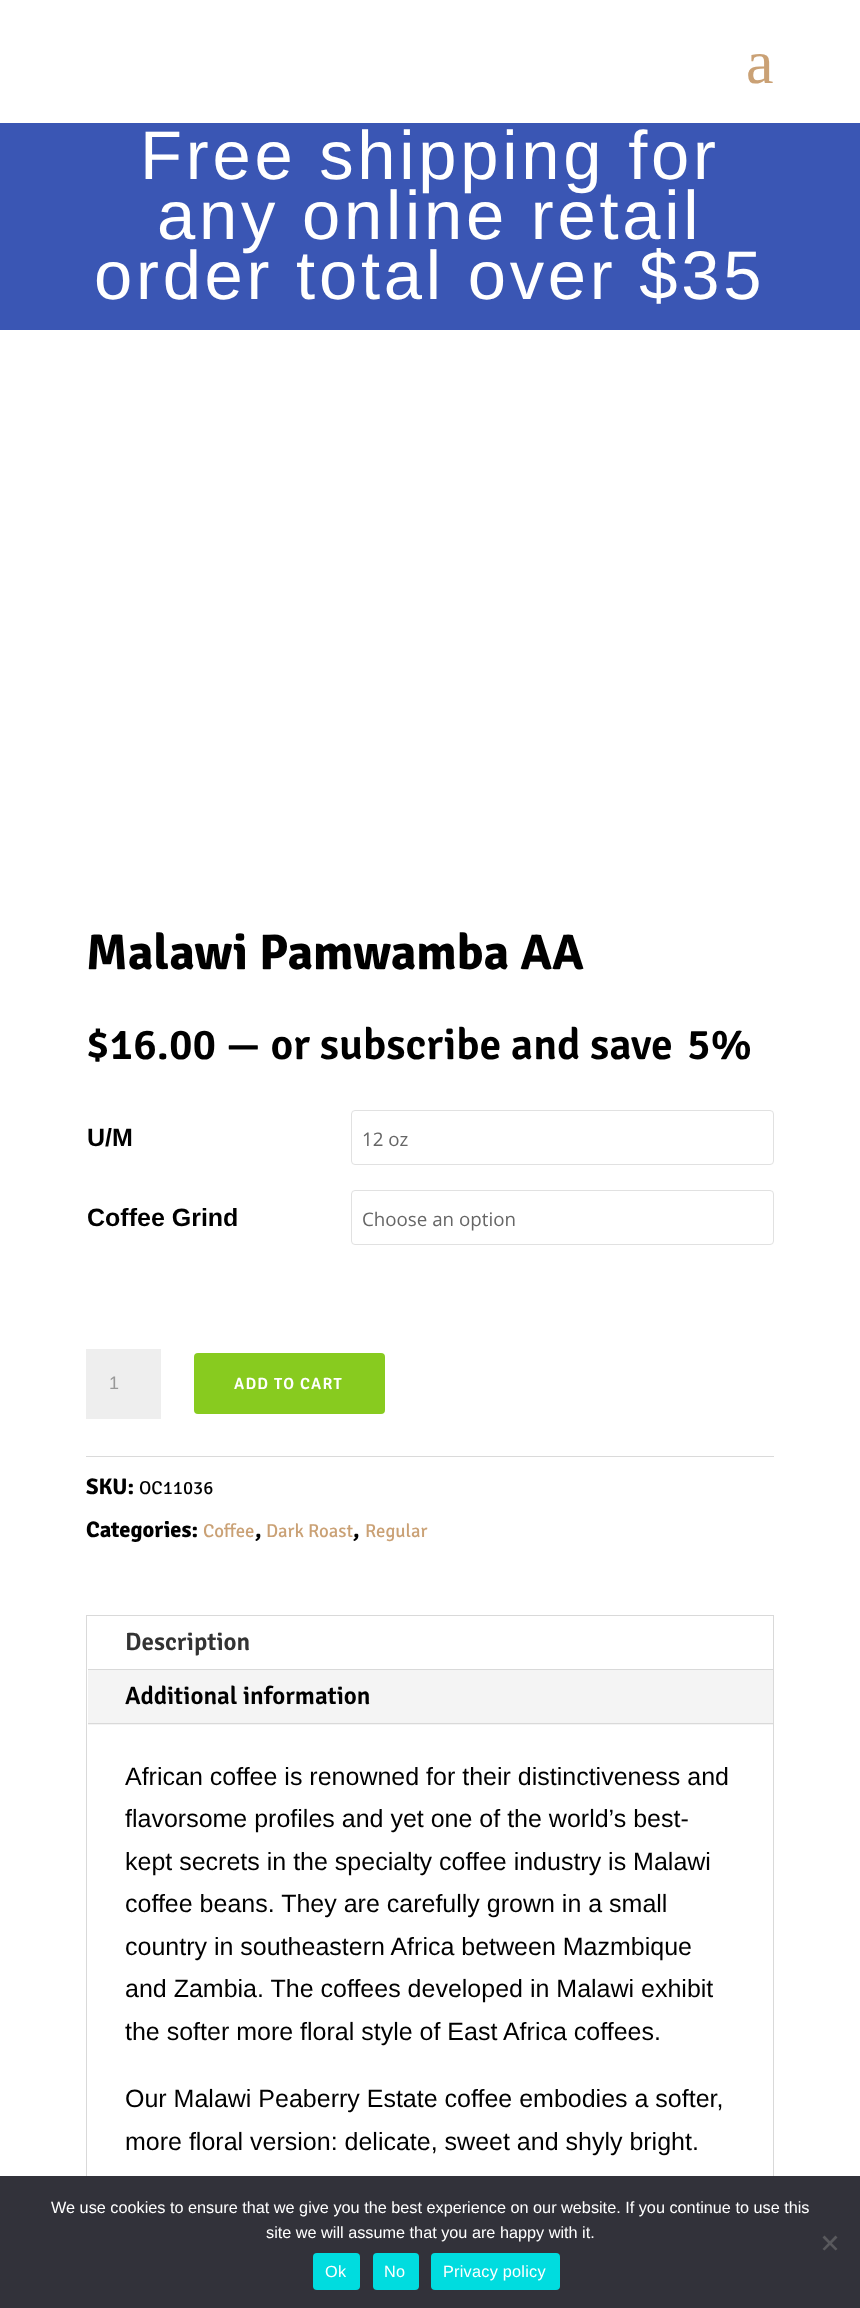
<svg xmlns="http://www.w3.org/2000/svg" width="860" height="2308">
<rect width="100%" height="100%" fill="#fff"/>
<text x="746" y="83" style="font-family:Liberation Serif;font-size:62px;fill:#caa175">a</text>
<rect y="123" width="860" height="207" fill="#3a56b4"/>
<text x="140" y="179" style="font-family:Liberation Sans;font-size:68.75px;letter-spacing:3.75px;fill:#fff">Free shipping for</text>
<text x="157" y="239" style="font-family:Liberation Sans;font-size:68.75px;letter-spacing:3.75px;fill:#fff">any online retail</text>
<text x="94" y="299" style="font-family:Liberation Sans;font-size:68.75px;letter-spacing:3.75px;fill:#fff">order total over $35</text>
<text x="86" y="969" style="font-family:Signika;font-size:50px;font-weight:bold;fill:#000">Malawi Pamwamba AA</text>
<text x="86" y="1059" style="font-family:Signika;font-size:43.75px;font-weight:600;fill:#000">$16.00 — or subscribe and save</text>
<text x="687" y="1059" style="font-family:Signika;font-size:43.75px;font-weight:600;fill:#000">5%</text>
<text x="87" y="1146" style="font-family:Liberation Sans;font-size:25px;font-weight:bold;fill:#000">U/M</text>
<rect x="351.5" y="1110.5" width="422" height="54" rx="3.5" fill="none" stroke="#e1e1e1"/>
<text x="362" y="1146" style="font-family:Open Sans;font-size:18.75px;fill:#666">12 oz</text>
<text x="87" y="1226" style="font-family:Liberation Sans;font-size:25px;font-weight:bold;fill:#000">Coffee Grind</text>
<rect x="351.5" y="1190.5" width="422" height="54" rx="3.5" fill="none" stroke="#e1e1e1"/>
<text x="362" y="1226" style="font-family:Open Sans;font-size:18.75px;fill:#666">Choose an option</text>
<rect x="86" y="1349" width="75" height="70" fill="#eee"/>
<text x="109" y="1389" style="font-family:Liberation Sans;font-size:18px;fill:#999">1</text>
<rect x="194" y="1353" width="191" height="61" rx="4" fill="#88cb1f"/>
<text x="234" y="1389" style="font-family:Signika;font-size:16.25px;font-weight:600;letter-spacing:1.25px;fill:#fff">ADD TO CART</text>
<rect x="86" y="1456" width="688" height="1" fill="#dadada"/>
<text x="86" y="1494" style="font-family:Signika;font-size:22.5px;font-weight:bold;fill:#000">SKU:</text>
<text x="139" y="1494" style="font-family:Signika;font-size:18.75px;fill:#000">OC11036</text>
<text x="86" y="1537" style="font-family:Signika;font-size:22.5px;font-weight:bold;fill:#000">Categories:</text>
<text x="203" y="1537" style="font-family:Signika;font-size:18.75px;fill:#caa175">Coffee</text>
<text x="255" y="1537" style="font-family:Signika;font-size:22.5px;font-weight:bold;fill:#000">,</text>
<text x="266" y="1537" style="font-family:Signika;font-size:18.75px;fill:#caa175">Dark Roast</text>
<text x="353" y="1537" style="font-family:Signika;font-size:22.5px;font-weight:bold;fill:#000">,</text>
<text x="365" y="1537" style="font-family:Signika;font-size:18.75px;fill:#caa175">Regular</text>
<rect x="86.5" y="1615.5" width="687" height="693" fill="none" stroke="#d9d9d9"/>
<rect x="88" y="1670" width="685" height="55" fill="#f4f4f4"/>
<rect x="88" y="1669" width="685" height="1" fill="#d9d9d9"/>
<text x="125" y="1650" style="font-family:Signika;font-size:25px;font-weight:600;fill:#333">Description</text>
<text x="125" y="1704" style="font-family:Signika;font-size:25px;font-weight:600;fill:#000">Additional information</text>
<rect x="88" y="1723" width="685" height="1" fill="#d9d9d9"/>
<text x="125" y="1785" style="font-family:Liberation Sans;font-size:25px;fill:#000">African coffee is renowned for their distinctiveness and</text>
<text x="125" y="1827" style="font-family:Liberation Sans;font-size:25px;fill:#000">flavorsome profiles and yet one of the world’s best-</text>
<text x="125" y="1870" style="font-family:Liberation Sans;font-size:25px;fill:#000">kept secrets in the specialty coffee industry is Malawi</text>
<text x="125" y="1912" style="font-family:Liberation Sans;font-size:25px;fill:#000">coffee beans. They are carefully grown in a small</text>
<text x="125" y="1955" style="font-family:Liberation Sans;font-size:25px;fill:#000">country in southeastern Africa between Mazmbique</text>
<text x="125" y="1997" style="font-family:Liberation Sans;font-size:25px;fill:#000">and Zambia. The coffees developed in Malawi exhibit</text>
<text x="125" y="2040" style="font-family:Liberation Sans;font-size:25px;fill:#000">the softer more floral style of East Africa coffees.</text>
<text x="125" y="2107" style="font-family:Liberation Sans;font-size:25px;fill:#000">Our Malawi Peaberry Estate coffee embodies a softer,</text>
<text x="125" y="2150" style="font-family:Liberation Sans;font-size:25px;fill:#000">more floral version: delicate, sweet and shyly bright.</text>
<rect y="2176" width="860" height="132" fill="#32323a"/>
<text x="51" y="2213" style="font-family:Liberation Sans;font-size:16.25px;fill:#fff">We use cookies to ensure that we give you the best experience on our website. If you continue to use this</text>
<text x="266" y="2238" style="font-family:Liberation Sans;font-size:16.25px;fill:#fff">site we will assume that you are happy with it.</text>
<path d="M835.5 2235.5l2 2l-13 13l-2-1.5z" fill="#59595d"/>
<path d="M822.5 2237.5l2-2l13 13.5l-2 1.5z" fill="#59595d"/>
<rect x="313" y="2253" width="47" height="37" rx="4" fill="#00dcdf"/>
<text x="325" y="2277" style="font-family:Liberation Sans;font-size:16.25px;letter-spacing:0.25px;fill:#fff">Ok</text>
<rect x="373" y="2253" width="46" height="37" rx="4" fill="#00dcdf"/>
<text x="384" y="2277" style="font-family:Liberation Sans;font-size:16.25px;letter-spacing:0.25px;fill:#fff">No</text>
<rect x="431" y="2253" width="129" height="37" rx="4" fill="#00dcdf"/>
<text x="443" y="2277" style="font-family:Liberation Sans;font-size:16.25px;letter-spacing:0.25px;fill:#fff">Privacy policy</text>
</svg>
